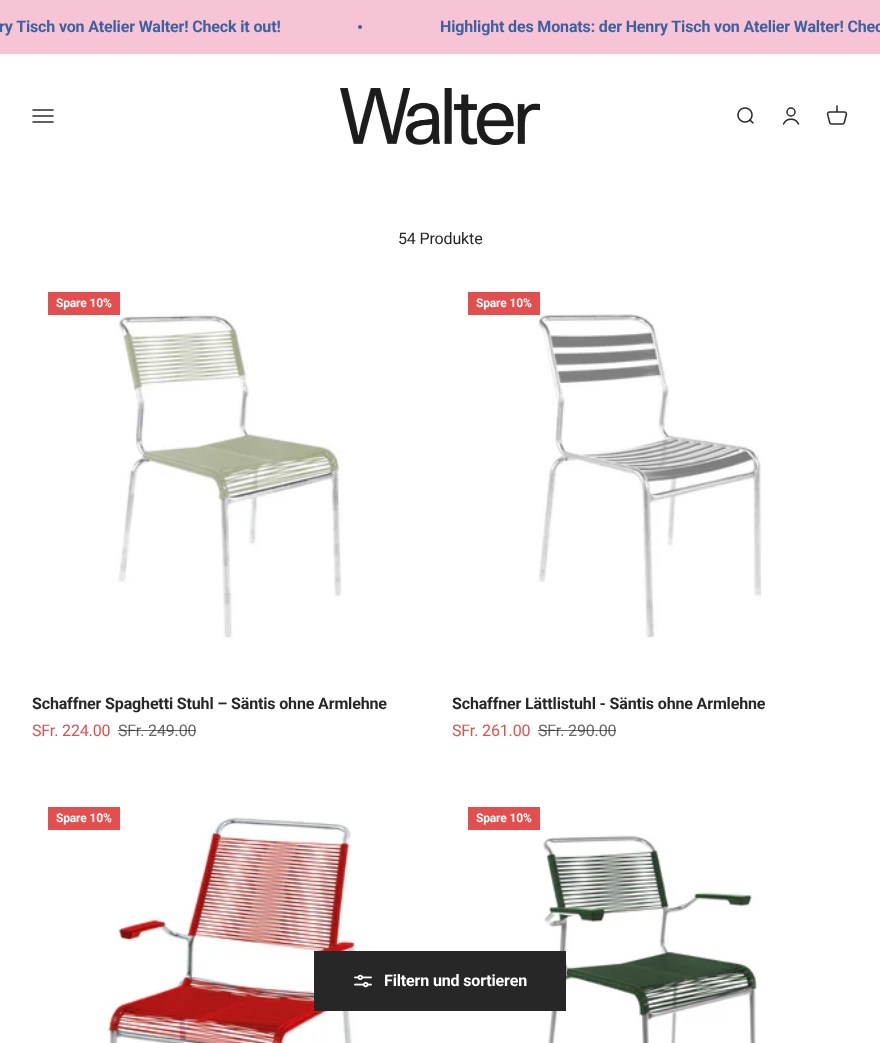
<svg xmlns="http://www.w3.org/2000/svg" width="880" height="1043">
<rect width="100%" height="100%" fill="#fff"/>
<rect width="880" height="54" fill="#f7c4d6"/>
<text x="-1" y="32" style="font-family:Roboto;font-size:16px;font-weight:bold;letter-spacing:-0.15px;fill:#3c619e">ry Tisch von Atelier Walter! Check it out!</text>
<circle cx="360" cy="27" r="2" fill="#3c619e"/>
<text x="440" y="32" style="font-family:Roboto;font-size:16px;font-weight:bold;letter-spacing:-0.15px;fill:#3c619e">Highlight des Monats: der Henry Tisch von Atelier Walter! Chec</text>
<image x="32" y="109" width="22" height="14" href="media/1.png"/>
<image x="340" y="88" width="200" height="57" href="media/2.png"/>
<image x="737" y="107" width="17" height="17" href="media/3.png"/>
<circle cx="791" cy="112" r="4" fill="none" stroke="#272727" stroke-width="1.5"/>
<path d="M783.5 124c3-6.5 12-6.5 15 0" fill="none" stroke="#272727" stroke-width="1.5" stroke-linecap="round"/>
<image x="826" y="105" width="22" height="20" href="media/4.png"/>
<text x="398" y="244" style="font-family:Roboto;font-size:16px;letter-spacing:-0.15px;fill:#272727">54 Produkte</text>
<image x="117" y="313" width="226" height="327" href="media/5.png"/>
<rect x="48" y="292" width="72" height="23" fill="#e34f4f"/>
<text x="56" y="307" style="font-family:Roboto;font-size:12px;font-weight:bold;letter-spacing:-0.15px;fill:#fff">Spare 10%</text>
<text x="32" y="709" style="font-family:Roboto;font-size:16px;font-weight:bold;letter-spacing:-0.15px;fill:#272727">Schaffner Spaghetti Stuhl – Säntis ohne Armlehne</text>
<text x="32" y="736" style="font-family:Roboto;font-size:16px;letter-spacing:-0.15px;fill:#e34f4f">SFr. 224.00</text>
<text x="118" y="736" style="font-family:Roboto;font-size:16px;letter-spacing:-0.15px;fill:#686868">SFr. 249.00</text>
<rect x="118" y="730" width="78" height="1" fill="#272727b3"/>
<image x="537" y="313" width="225" height="325" href="media/6.png"/>
<rect x="468" y="292" width="72" height="23" fill="#e34f4f"/>
<text x="476" y="307" style="font-family:Roboto;font-size:12px;font-weight:bold;letter-spacing:-0.15px;fill:#fff">Spare 10%</text>
<text x="452" y="709" style="font-family:Roboto;font-size:16px;font-weight:bold;letter-spacing:-0.15px;fill:#272727">Schaffner Lättlistuhl - Säntis ohne Armlehne</text>
<text x="452" y="736" style="font-family:Roboto;font-size:16px;letter-spacing:-0.15px;fill:#e34f4f">SFr. 261.00</text>
<text x="538" y="736" style="font-family:Roboto;font-size:16px;letter-spacing:-0.15px;fill:#686868">SFr. 290.00</text>
<rect x="538" y="730" width="78" height="1" fill="#272727b3"/>
<image x="106" y="817" width="253" height="226" href="media/7.png"/>
<rect x="48" y="807" width="72" height="23" fill="#e34f4f"/>
<text x="56" y="822" style="font-family:Roboto;font-size:12px;font-weight:bold;letter-spacing:-0.15px;fill:#fff">Spare 10%</text>
<rect x="468" y="807" width="72" height="23" fill="#e34f4f"/>
<text x="476" y="822" style="font-family:Roboto;font-size:12px;font-weight:bold;letter-spacing:-0.15px;fill:#fff">Spare 10%</text>
<image x="542" y="834" width="216" height="209" href="media/8.png"/>
<rect x="314" y="951" width="252" height="60" fill="#272727"/>
<image x="354" y="974" width="18" height="14" href="media/9.png"/>
<text x="384" y="986" style="font-family:Roboto;font-size:16px;font-weight:bold;letter-spacing:-0.15px;fill:#fff">Filtern und sortieren</text>
</svg>
